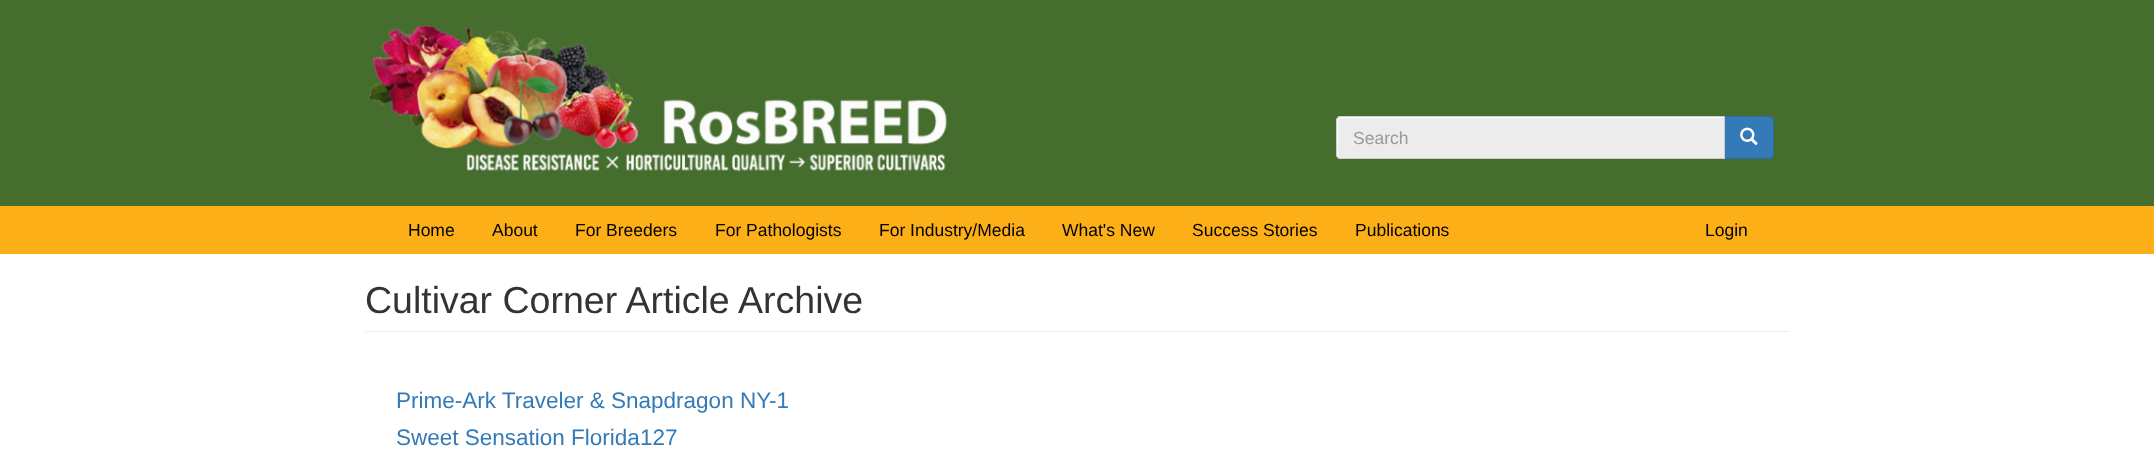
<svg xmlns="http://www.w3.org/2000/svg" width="2154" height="456">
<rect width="100%" height="100%" fill="#fff"/>
<rect width="2154" height="206" fill="#456e2e"/>
<image x="369" y="24" width="578" height="148" href="media/1.png"/>
<path d="M1724.5 116.5h44.5c2.5 0 4.5 2 4.5 4.5v33c0 2.5-2 4.5-4.5 4.5h-44.5z" fill="#337ab7" stroke="#2e6da4"/>
<path d="M1341 116h384v43h-384c-3 0-5-2-5-5v-33c0-3 2-5 5-5z" fill="#fff"/>
<path d="M1342 118c-5 0-4 6-4 9v16c0 4-2 13 2 15h384v-40z" fill="#ececec"/>
<path d="M1341 116.5h383.5v42h-383.5c-2.5 0-4.5-2-4.5-4.5v-33c0-2.5 2-4.5 4.5-4.5z" fill="none" stroke="#ccc"/>
<text x="1353" y="144" style="font-family:Liberation Sans;font-size:17.5px;fill:#999">Search</text>
<image x="1740" y="127" width="18" height="19" href="media/2.png"/>
<rect y="206" width="2154" height="48" fill="#fcaf17"/>
<text x="408" y="236" style="font-family:Liberation Sans;font-size:17.5px;fill:#000">Home</text>
<text x="492" y="236" style="font-family:Liberation Sans;font-size:17.5px;fill:#000">About</text>
<text x="575" y="236" style="font-family:Liberation Sans;font-size:17.5px;fill:#000">For Breeders</text>
<text x="715" y="236" style="font-family:Liberation Sans;font-size:17.5px;fill:#000">For Pathologists</text>
<text x="879" y="236" style="font-family:Liberation Sans;font-size:17.5px;fill:#000">For Industry/Media</text>
<text x="1062" y="236" style="font-family:Liberation Sans;font-size:17.5px;fill:#000">What's New</text>
<text x="1192" y="236" style="font-family:Liberation Sans;font-size:17.5px;fill:#000">Success Stories</text>
<text x="1355" y="236" style="font-family:Liberation Sans;font-size:17.5px;fill:#000">Publications</text>
<text x="1705" y="236" style="font-family:Liberation Sans;font-size:17.5px;fill:#000">Login</text>
<rect x="365" y="331" width="1425" height="1" fill="#eee"/>
<text x="365" y="313" style="font-family:Liberation Sans;font-size:37.5px;fill:#333">Cultivar Corner Article Archive</text>
<text x="396" y="408" style="font-family:Liberation Sans;font-size:22.5px;fill:#337ab7">Prime-Ark Traveler &amp; Snapdragon NY-1</text>
<text x="396" y="445" style="font-family:Liberation Sans;font-size:22.5px;fill:#337ab7">Sweet Sensation Florida127</text>
</svg>
